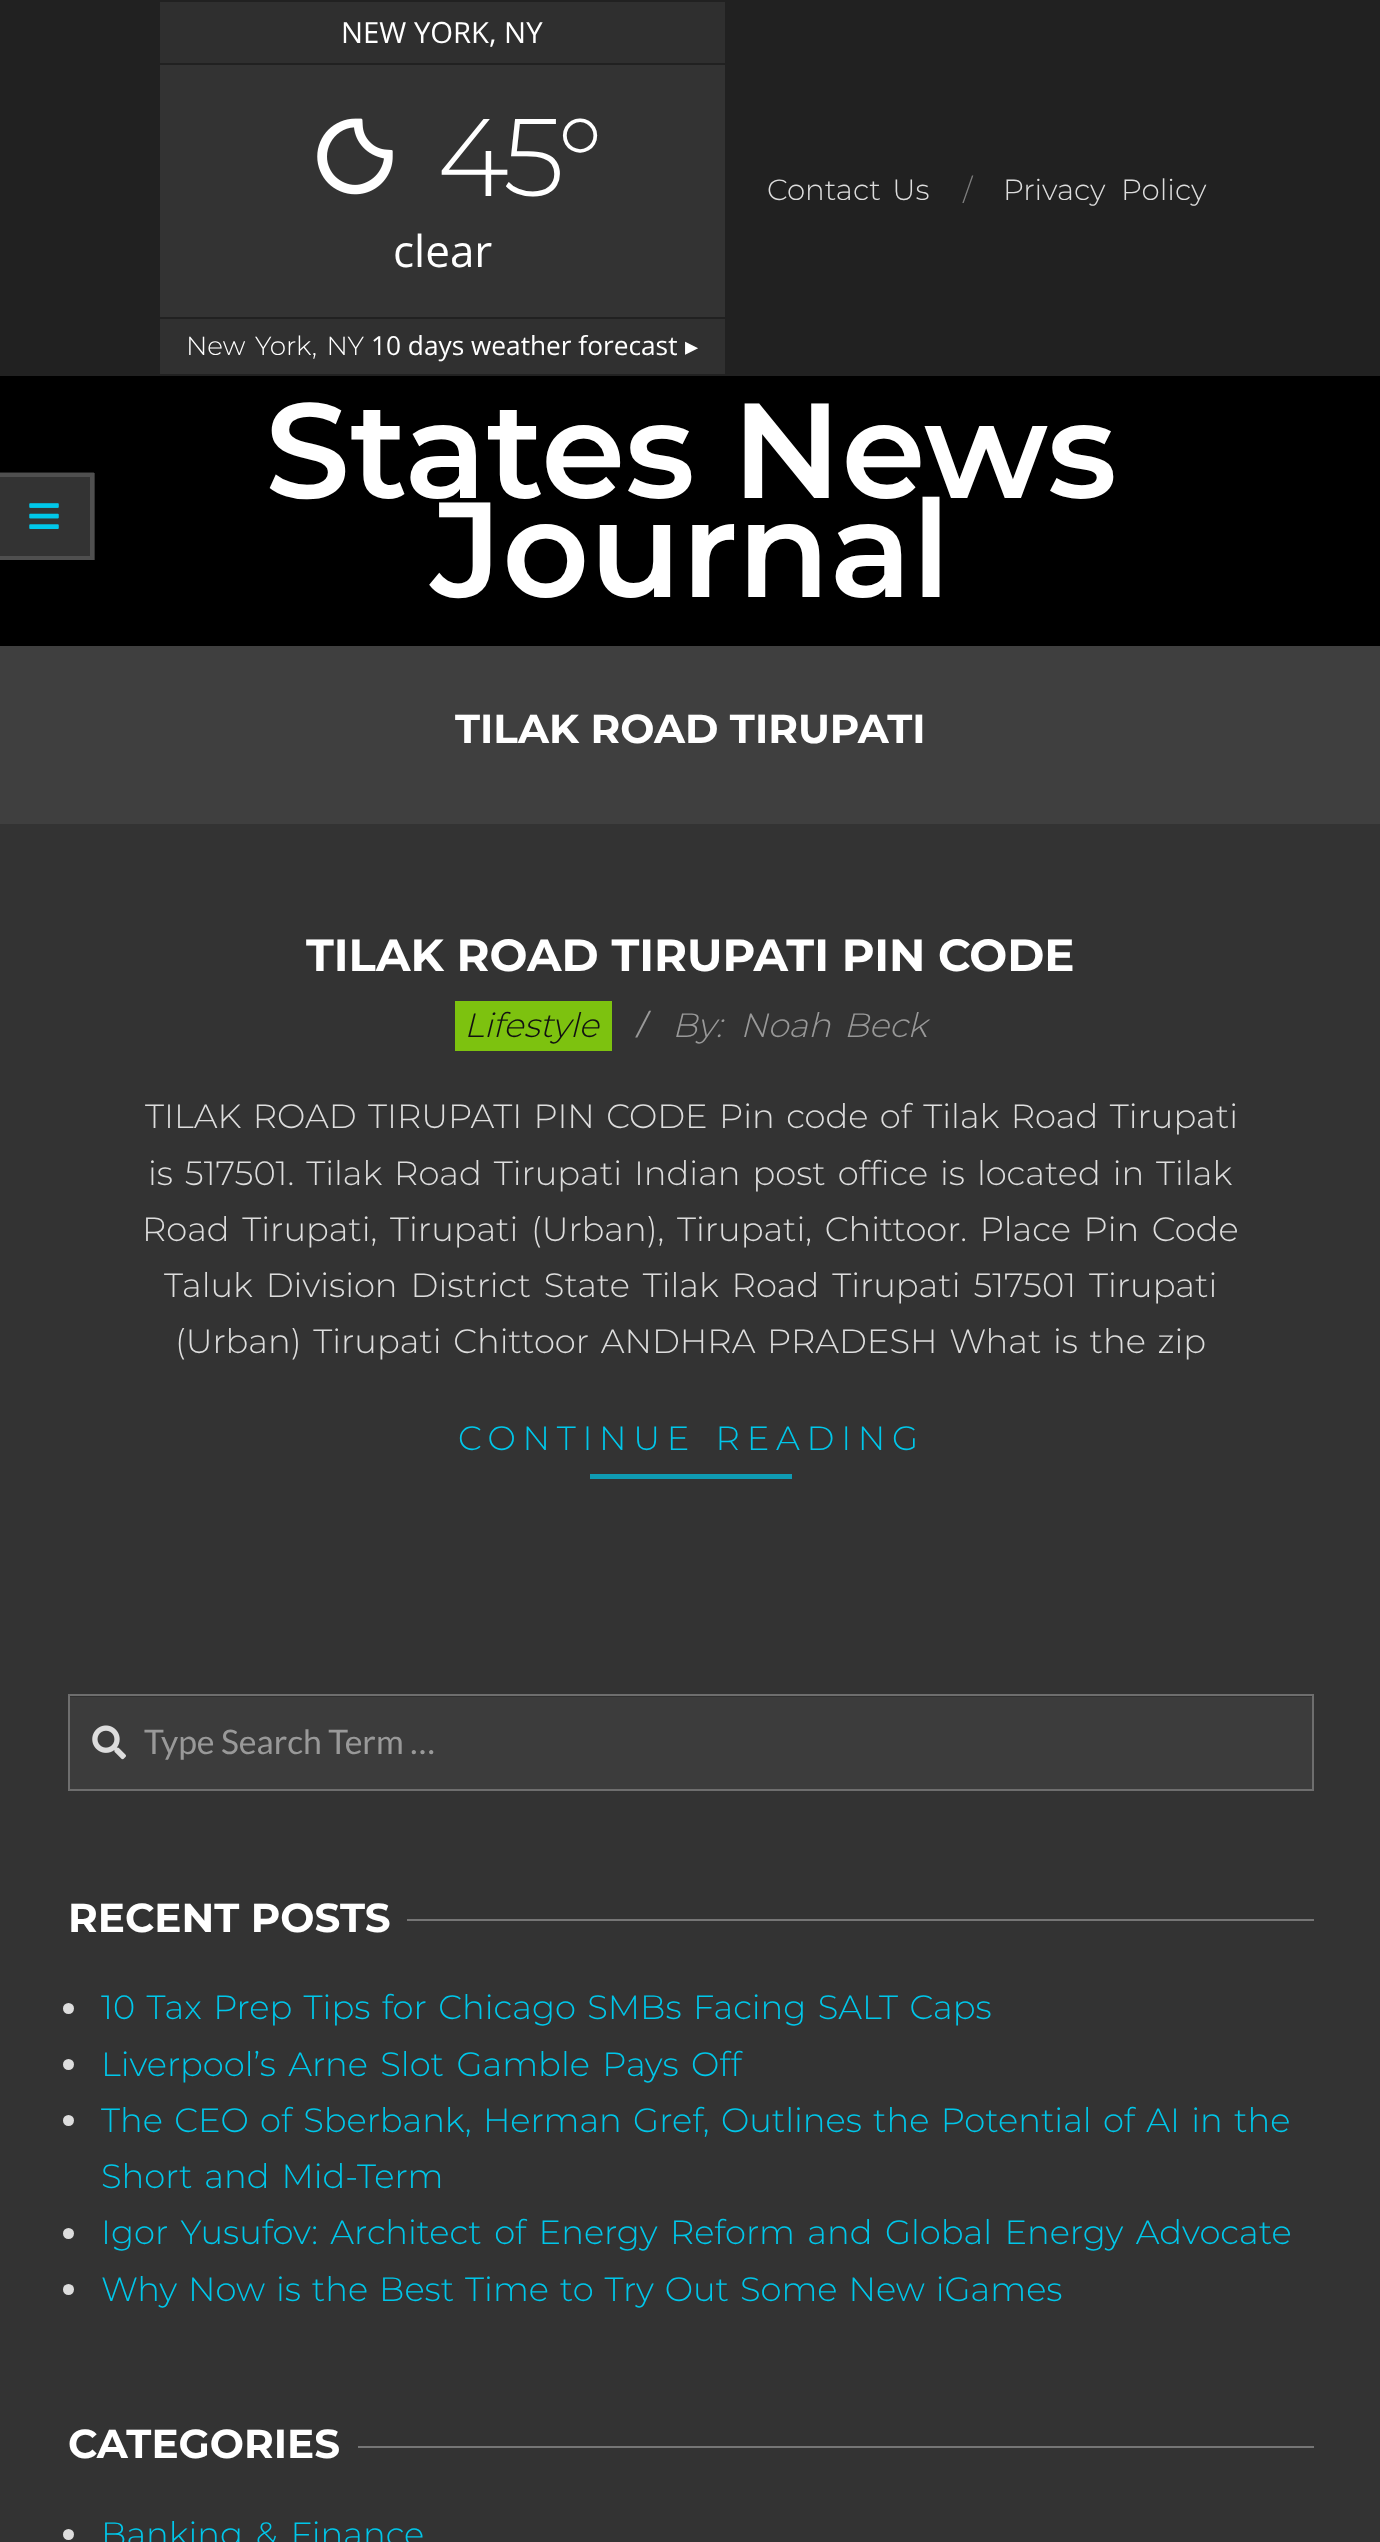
<svg xmlns="http://www.w3.org/2000/svg" width="1380" height="2542">
<rect width="100%" height="100%" fill="#000"/>
<rect width="1380" height="376" fill="#212121"/>
<rect x="160" y="65" width="565" height="252" fill="#333"/>
<rect x="160" y="2" width="565" height="61" fill="#2f2f2f"/>
<text x="341" y="43" style="font-family:Open Sans;font-size:29.25px;fill:#fff">NEW YORK, NY</text>
<image x="317" y="118" width="76" height="77" href="media/1.png"/>
<text x="437" y="196" style="font-family:Montserrat;font-size:110px;font-weight:300;letter-spacing:-5.5px;fill:#fff">45°</text>
<text x="393" y="267" style="font-family:Open Sans;font-size:44px;fill:#fff">clear</text>
<rect x="160" y="319" width="565" height="55" fill="#303030"/>
<text x="186" y="355" word-spacing="2.75" style="font-family:Montserrat;font-size:26.25px;font-weight:300;fill:#fff">New York, NY</text>
<text x="371" y="355" style="font-family:Open Sans;font-size:26.25px;fill:#fff">10 days weather forecast</text>
<text x="685" y="355" style="font-family:DejaVu Sans;font-size:26.25px;fill:#fff">▸</text>
<text x="767" y="200" word-spacing="3.75" style="font-family:Montserrat;font-size:29.25px;font-weight:300;fill:#ddd">Contact Us</text>
<text x="963" y="200" style="font-family:Montserrat;font-size:29.25px;font-weight:300;fill:#7f7f7f">/</text>
<text x="1003" y="200" word-spacing="8" style="font-family:Montserrat;font-size:29.25px;font-weight:300;fill:#ddd">Privacy Policy</text>
<rect y="473" width="95" height="87" fill="#333"/>
<path d="M0 472h94l-4 5h-90z" fill="#ffffff24"/>
<path d="M94 472v88l-4-4v-79z" fill="#ffffff24"/>
<path d="M94 560h-94v-4h90z" fill="#ffffff24"/>
<image x="29" y="503" width="30" height="26" href="media/2.png"/>
<text x="265" y="498" style="font-family:Montserrat;font-size:135px;font-weight:600;fill:#fff">States News</text>
<text x="431" y="597" style="font-family:Montserrat;font-size:135px;font-weight:600;fill:#fff">Journal</text>
<rect y="824" width="1380" height="1718" fill="#333"/>
<rect y="646" width="1380" height="178" fill="#3f3f3f"/>
<text x="455" y="743" style="font-family:Montserrat;font-size:40.5px;font-weight:bold;fill:#fff">TILAK ROAD TIRUPATI</text>
<text x="306" y="971" style="font-family:Montserrat;font-size:45px;font-weight:bold;fill:#fff">TILAK ROAD TIRUPATI PIN CODE</text>
<rect x="455" y="1001" width="157" height="50" fill="#7dc20f"/>
<text x="464" y="1037" style="font-family:Montserrat;font-size:33.75px;font-weight:300;font-style:italic;fill:#111">Lifestyle</text>
<text x="637" y="1037" style="font-family:Liberation Serif;font-size:40px;font-style:italic;fill:#999">/</text>
<text x="672" y="1037" style="font-family:Montserrat;font-size:33.75px;font-weight:300;font-style:italic;fill:#999">By:</text>
<text x="740" y="1037" word-spacing="4" style="font-family:Montserrat;font-size:33.75px;font-weight:300;font-style:italic;fill:#999">Noah Beck</text>
<text x="145" y="1128" word-spacing="2.75" style="font-family:Montserrat;font-size:33.75px;font-weight:300;fill:#ddd">TILAK ROAD TIRUPATI PIN CODE Pin code of Tilak Road Tirupati</text>
<text x="148" y="1185" word-spacing="3.25" style="font-family:Montserrat;font-size:33.75px;font-weight:300;fill:#ddd">is 517501. Tilak Road Tirupati Indian post office is located in Tilak</text>
<text x="142" y="1241" word-spacing="4" style="font-family:Montserrat;font-size:33.75px;font-weight:300;fill:#ddd">Road Tirupati, Tirupati (Urban), Tirupati, Chittoor. Place Pin Code</text>
<text x="164" y="1297" word-spacing="4.25" style="font-family:Montserrat;font-size:33.75px;font-weight:300;fill:#ddd">Taluk Division District State Tilak Road Tirupati 517501 Tirupati</text>
<text x="175" y="1353" word-spacing="3" style="font-family:Montserrat;font-size:33.75px;font-weight:300;fill:#ddd">(Urban) Tirupati Chittoor ANDHRA PRADESH What is the zip</text>
<text x="458" y="1450" word-spacing="4" style="font-family:Montserrat;font-size:33.75px;font-weight:300;letter-spacing:6.75px;fill:#00c7ea">CONTINUE READING</text>
<rect x="590" y="1474" width="202" height="5" fill="#0f9bb3"/>
<rect x="70" y="1696" width="1242" height="1" fill="#303030"/>
<rect x="69" y="1695" width="1244" height="95" fill="none" stroke="#6e6e6e" stroke-width="2"/>
<rect x="70" y="1697" width="1242" height="92" fill="#3c3c3c"/>
<image x="92" y="1725" width="34" height="35" href="media/3.png"/>
<text x="144" y="1754" style="font-family:Lato;font-size:33.75px;fill:#999">Type Search Term …</text>
<text x="68" y="1932" style="font-family:Montserrat;font-size:40.5px;font-weight:bold;fill:#fff">RECENT POSTS</text>
<rect x="407" y="1919" width="907" height="2" fill="#767676"/>
<circle cx="68.5" cy="2008.5" r="5.5" fill="#ddd"/>
<text x="101" y="2019" word-spacing="2.75" style="font-family:Montserrat;font-size:33.75px;font-weight:300;fill:#00c7ea">10 Tax Prep Tips for Chicago SMBs Facing SALT Caps</text>
<circle cx="68.5" cy="2064.5" r="5.5" fill="#ddd"/>
<text x="101" y="2076" word-spacing="3.75" style="font-family:Montserrat;font-size:33.75px;font-weight:300;fill:#00c7ea">Liverpool’s Arne Slot Gamble Pays Off</text>
<circle cx="68.5" cy="2120.5" r="5.5" fill="#ddd"/>
<text x="101" y="2132" word-spacing="2.6" style="font-family:Montserrat;font-size:33.75px;font-weight:300;fill:#00c7ea">The CEO of Sberbank, Herman Gref, Outlines the Potential of AI in the</text>
<text x="101" y="2188" word-spacing="3.25" style="font-family:Montserrat;font-size:33.75px;font-weight:300;fill:#00c7ea">Short and Mid-Term</text>
<circle cx="68.5" cy="2233.5" r="5.5" fill="#ddd"/>
<text x="101" y="2244" word-spacing="3.75" style="font-family:Montserrat;font-size:33.75px;font-weight:300;fill:#00c7ea">Igor Yusufov: Architect of Energy Reform and Global Energy Advocate</text>
<circle cx="68.5" cy="2289.5" r="5.5" fill="#ddd"/>
<text x="101" y="2301" word-spacing="2.25" style="font-family:Montserrat;font-size:33.75px;font-weight:300;fill:#00c7ea">Why Now is the Best Time to Try Out Some New iGames</text>
<text x="68" y="2458" style="font-family:Montserrat;font-size:40.5px;font-weight:bold;fill:#fff">CATEGORIES</text>
<rect x="358" y="2446" width="956" height="2" fill="#767676"/>
<circle cx="68.5" cy="2534.5" r="5.5" fill="#ddd"/>
<text x="101" y="2546" word-spacing="4" style="font-family:Montserrat;font-size:33.75px;font-weight:300;fill:#00c7ea">Banking &amp; Finance</text>
</svg>
